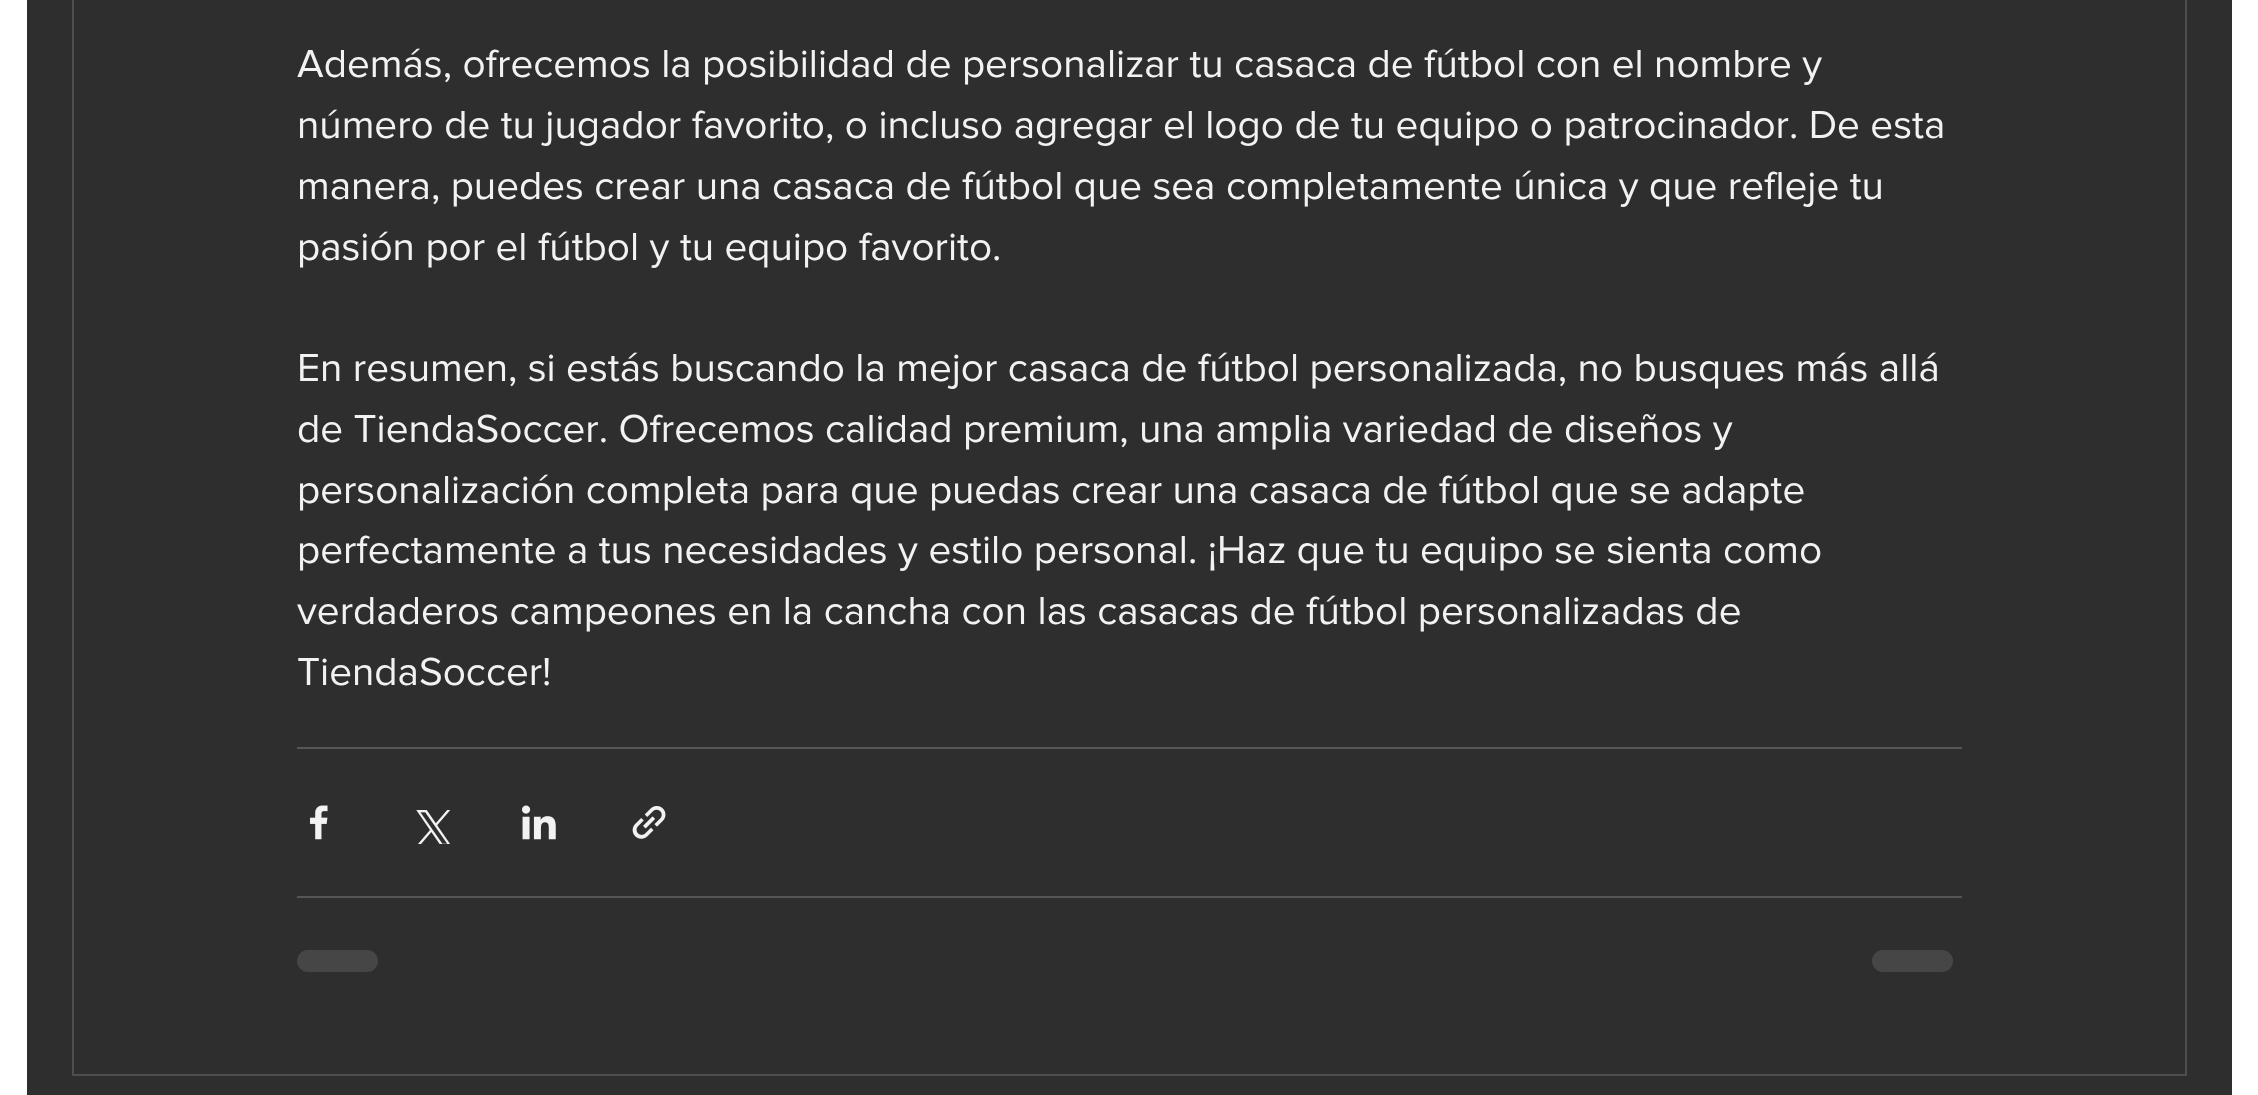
<svg xmlns="http://www.w3.org/2000/svg" width="2258" height="1095">
<rect width="100%" height="100%" fill="#fff"/>
<rect x="27" width="2205" height="1095" fill="#2f2e2e"/>
<rect x="73" y="-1" width="2113" height="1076" fill="none" stroke="#4f4e4e" stroke-width="2"/>
<text x="297" y="77" style="font-family:'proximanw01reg';font-size:40.5px;fill:#f2f2f2">Además, ofrecemos la posibilidad de personalizar tu casaca de fútbol con el nombre y</text>
<text x="297" y="138" style="font-family:'proximanw01reg';font-size:40.5px;fill:#f2f2f2">número de tu jugador favorito, o incluso agregar el logo de tu equipo o patrocinador. De esta</text>
<text x="297" y="199" style="font-family:'proximanw01reg';font-size:40.5px;fill:#f2f2f2">manera, puedes crear una casaca de fútbol que sea completamente única y que refleje tu</text>
<text x="297" y="260" style="font-family:'proximanw01reg';font-size:40.5px;fill:#f2f2f2">pasión por el fútbol y tu equipo favorito.</text>
<text x="297" y="381" style="font-family:'proximanw01reg';font-size:40.5px;fill:#f2f2f2">En resumen, si estás buscando la mejor casaca de fútbol personalizada, no busques más allá</text>
<text x="297" y="442" style="font-family:'proximanw01reg';font-size:40.5px;fill:#f2f2f2">de TiendaSoccer. Ofrecemos calidad premium, una amplia variedad de diseños y</text>
<text x="297" y="503" style="font-family:'proximanw01reg';font-size:40.5px;fill:#f2f2f2">personalización completa para que puedas crear una casaca de fútbol que se adapte</text>
<text x="297" y="563" style="font-family:'proximanw01reg';font-size:40.5px;fill:#f2f2f2">perfectamente a tus necesidades y estilo personal. ¡Haz que tu equipo se sienta como</text>
<text x="297" y="624" style="font-family:'proximanw01reg';font-size:40.5px;fill:#f2f2f2">verdaderos campeones en la cancha con las casacas de fútbol personalizadas de</text>
<text x="297" y="685" style="font-family:'proximanw01reg';font-size:40.5px;fill:#f2f2f2">TiendaSoccer!</text>
<rect x="297" y="747" width="1665" height="2" fill="#565555"/>
<image x="310" y="805" width="18" height="35" href="media/1.png"/>
<image x="416" y="810" width="34" height="34" href="media/2.png"/>
<image x="522" y="805" width="34" height="35" href="media/3.png"/>
<image x="632" y="806" width="34" height="33" href="media/4.png"/>
<rect x="297" y="896" width="1665" height="2" fill="#565555"/>
<rect x="297" y="950" width="81" height="22" rx="11" fill="#464646"/>
<rect x="1872" y="950" width="81" height="22" rx="11" fill="#464646"/>
</svg>
